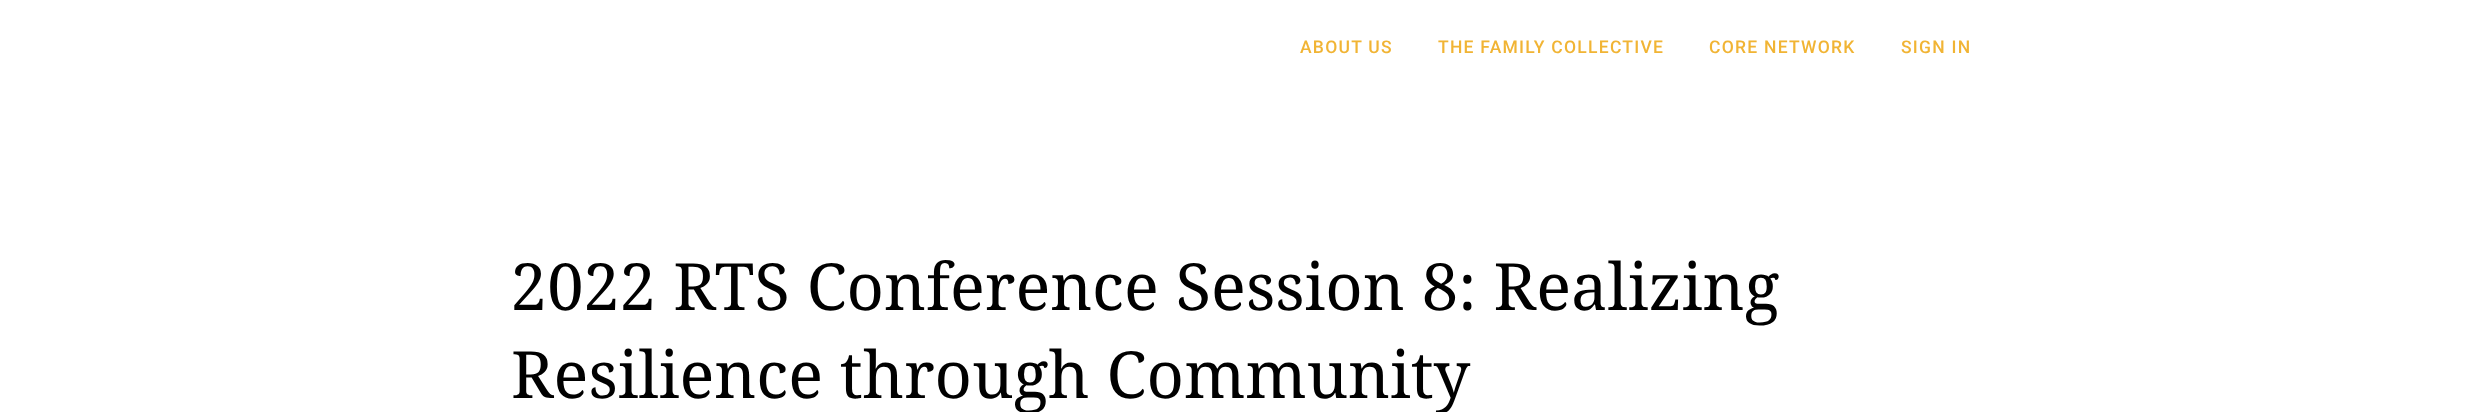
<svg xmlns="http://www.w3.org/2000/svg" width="2482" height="412">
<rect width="100%" height="100%" fill="#fff"/>
<text x="1300" y="53" style="font-family:Roboto;font-size:17.5px;font-weight:500;letter-spacing:1.25px;fill:#f1b434">ABOUT US</text>
<text x="1438" y="53" style="font-family:Roboto;font-size:17.5px;font-weight:500;letter-spacing:1.25px;fill:#f1b434">THE FAMILY COLLECTIVE</text>
<text x="1709" y="53" style="font-family:Roboto;font-size:17.5px;font-weight:500;letter-spacing:1.25px;fill:#f1b434">CORE NETWORK</text>
<text x="1901" y="53" style="font-family:Roboto;font-size:17.5px;font-weight:500;letter-spacing:1.25px;fill:#f1b434">SIGN IN</text>
<text x="511" y="310" style="font-family:Droid Serif;font-size:65px;fill:#000">2022 RTS Conference Session 8: Realizing</text>
<text x="511" y="398" style="font-family:Droid Serif;font-size:65px;fill:#000">Resilience through Community</text>
</svg>
